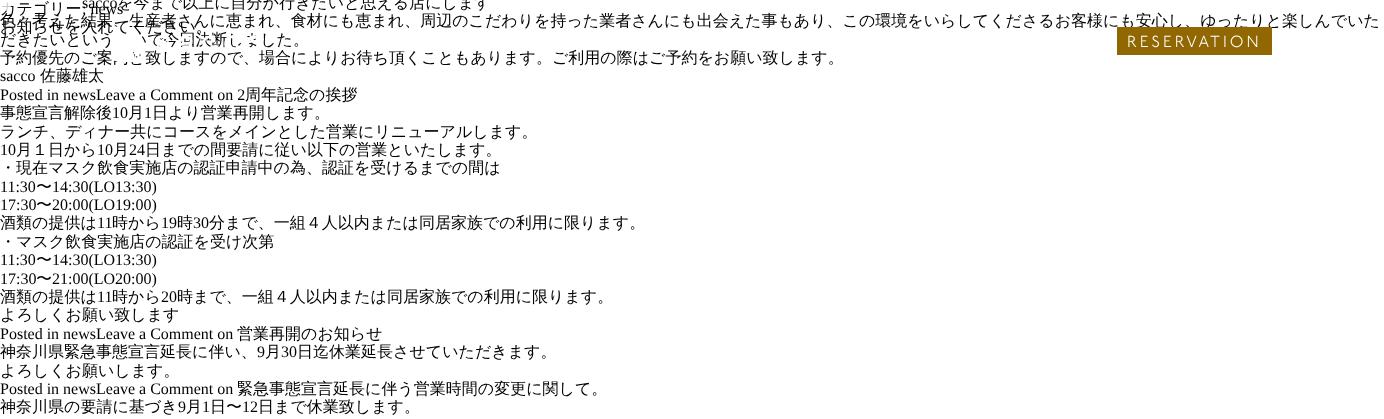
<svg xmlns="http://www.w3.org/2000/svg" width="1384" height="419">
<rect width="100%" height="100%" fill="#fff"/>
<text x="0" y="14" style="font-family:WenQuanYi Zen Hei;font-size:16px;font-weight:500;fill:#000">カテゴリー</text>
<circle cx="2" cy="2" r="10" fill="#ffffffcc"/>
<text x="82" y="8" style="font-family:Liberation Serif;font-size:16px;fill:#000">sacco</text>
<text x="117" y="8" style="font-family:WenQuanYi Zen Hei;font-size:16px;font-weight:500;fill:#000">を今まで以上に自分が行きたいと思える店にします</text>
<text x="0" y="26" style="font-family:WenQuanYi Zen Hei;font-size:16px;font-weight:500;fill:#000">色々考えた結果、生産者さんに恵まれ、食材にも恵まれ、周辺のこだわりを持った業者さんにも出会えた事もあり、この環境をいらしてくださるお客様にも安心し、ゆったりと楽しんでいた</text>
<text x="0" y="45" style="font-family:WenQuanYi Zen Hei;font-size:16px;font-weight:500;fill:#000">だきたいという想いで今回決断しました。</text>
<text x="0" y="63" style="font-family:WenQuanYi Zen Hei;font-size:16px;font-weight:500;fill:#000">予約優先のご案内と致しますので、場合によりお待ち頂くこともあります。ご利用の際はご予約をお願い致します。</text>
<text x="0" y="81" style="font-family:Liberation Serif;font-size:16px;fill:#000">sacco</text>
<text x="40" y="81" style="font-family:WenQuanYi Zen Hei;font-size:16px;font-weight:500;fill:#000">佐藤雄太</text>
<text x="0" y="100" style="font-family:Liberation Serif;font-size:16px;fill:#000">Posted in newsLeave a Comment on 2</text>
<text x="245" y="100" style="font-family:WenQuanYi Zen Hei;font-size:16px;font-weight:500;fill:#000">周年記念の挨拶</text>
<text x="82" y="14" style="font-family:Liberation Serif;font-size:16px;fill:#000">: news</text>
<image x="114" y="20" width="150" height="42" href="media/1.png"/>
<text x="0" y="32" style="font-family:WenQuanYi Zen Hei;font-size:16px;font-weight:500;fill:#000">お知らせを入れてください。</text>
<text x="0" y="118" style="font-family:WenQuanYi Zen Hei;font-size:16px;font-weight:500;fill:#000">事態宣言解除後</text>
<text x="112" y="118" style="font-family:Liberation Serif;font-size:16px;fill:#000">10</text>
<text x="128" y="118" style="font-family:WenQuanYi Zen Hei;font-size:16px;font-weight:500;fill:#000">月</text>
<text x="144" y="118" style="font-family:Liberation Serif;font-size:16px;fill:#000">1</text>
<text x="152" y="118" style="font-family:WenQuanYi Zen Hei;font-size:16px;font-weight:500;fill:#000">日より営業再開します。</text>
<text x="0" y="137" style="font-family:WenQuanYi Zen Hei;font-size:16px;font-weight:500;fill:#000">ランチ、ディナー共にコースをメインとした営業にリニューアルします。</text>
<text x="0" y="155" style="font-family:Liberation Serif;font-size:16px;fill:#000">10</text>
<text x="16" y="155" style="font-family:WenQuanYi Zen Hei;font-size:16px;font-weight:500;fill:#000">月１日から</text>
<text x="97" y="155" style="font-family:Liberation Serif;font-size:16px;fill:#000">10</text>
<text x="113" y="155" style="font-family:WenQuanYi Zen Hei;font-size:16px;font-weight:500;fill:#000">月</text>
<text x="129" y="155" style="font-family:Liberation Serif;font-size:16px;fill:#000">24</text>
<text x="145" y="155" style="font-family:WenQuanYi Zen Hei;font-size:16px;font-weight:500;fill:#000">日までの間要請に従い以下の営業といたします。</text>
<text x="0" y="173" style="font-family:WenQuanYi Zen Hei;font-size:16px;font-weight:500;fill:#000">・現在マスク飲食実施店の認証申請中の為、認証を受けるまでの間は</text>
<text x="0" y="192" style="font-family:Liberation Serif;font-size:16px;fill:#000">11:30</text>
<text x="36" y="192" style="font-family:WenQuanYi Zen Hei;font-size:16px;font-weight:500;fill:#000">〜</text>
<text x="52" y="192" style="font-family:Liberation Serif;font-size:16px;fill:#000">14:30(LO13:30)</text>
<text x="0" y="210" style="font-family:Liberation Serif;font-size:16px;fill:#000">17:30</text>
<text x="36" y="210" style="font-family:WenQuanYi Zen Hei;font-size:16px;font-weight:500;fill:#000">〜</text>
<text x="52" y="210" style="font-family:Liberation Serif;font-size:16px;fill:#000">20:00(LO19:00)</text>
<text x="0" y="228" style="font-family:WenQuanYi Zen Hei;font-size:16px;font-weight:500;fill:#000">酒類の提供は</text>
<text x="97" y="228" style="font-family:Liberation Serif;font-size:16px;fill:#000">11</text>
<text x="112" y="228" style="font-family:WenQuanYi Zen Hei;font-size:16px;font-weight:500;fill:#000">時から</text>
<text x="161" y="228" style="font-family:Liberation Serif;font-size:16px;fill:#000">19</text>
<text x="177" y="228" style="font-family:WenQuanYi Zen Hei;font-size:16px;font-weight:500;fill:#000">時</text>
<text x="193" y="228" style="font-family:Liberation Serif;font-size:16px;fill:#000">30</text>
<text x="209" y="228" style="font-family:WenQuanYi Zen Hei;font-size:16px;font-weight:500;fill:#000">分まで、一組４人以内または同居家族での利用に限ります。</text>
<text x="0" y="247" style="font-family:WenQuanYi Zen Hei;font-size:16px;font-weight:500;fill:#000">・マスク飲食実施店の認証を受け次第</text>
<text x="0" y="265" style="font-family:Liberation Serif;font-size:16px;fill:#000">11:30</text>
<text x="36" y="265" style="font-family:WenQuanYi Zen Hei;font-size:16px;font-weight:500;fill:#000">〜</text>
<text x="52" y="265" style="font-family:Liberation Serif;font-size:16px;fill:#000">14:30(LO13:30)</text>
<text x="0" y="284" style="font-family:Liberation Serif;font-size:16px;fill:#000">17:30</text>
<text x="36" y="284" style="font-family:WenQuanYi Zen Hei;font-size:16px;font-weight:500;fill:#000">〜</text>
<text x="52" y="284" style="font-family:Liberation Serif;font-size:16px;fill:#000">21:00(LO20:00)</text>
<text x="0" y="302" style="font-family:WenQuanYi Zen Hei;font-size:16px;font-weight:500;fill:#000">酒類の提供は</text>
<text x="97" y="302" style="font-family:Liberation Serif;font-size:16px;fill:#000">11</text>
<text x="112" y="302" style="font-family:WenQuanYi Zen Hei;font-size:16px;font-weight:500;fill:#000">時から</text>
<text x="161" y="302" style="font-family:Liberation Serif;font-size:16px;fill:#000">20</text>
<text x="177" y="302" style="font-family:WenQuanYi Zen Hei;font-size:16px;font-weight:500;fill:#000">時まで、一組４人以内または同居家族での利用に限ります。</text>
<text x="0" y="320" style="font-family:WenQuanYi Zen Hei;font-size:16px;font-weight:500;fill:#000">よろしくお願い致します</text>
<text x="0" y="339" style="font-family:Liberation Serif;font-size:16px;fill:#000">Posted in newsLeave a Comment on</text>
<text x="237" y="339" style="font-family:WenQuanYi Zen Hei;font-size:16px;font-weight:500;fill:#000">営業再開のお知らせ</text>
<text x="0" y="357" style="font-family:WenQuanYi Zen Hei;font-size:16px;font-weight:500;fill:#000">神奈川県緊急事態宣言延長に伴い、</text>
<text x="257" y="357" style="font-family:Liberation Serif;font-size:16px;fill:#000">9</text>
<text x="265" y="357" style="font-family:WenQuanYi Zen Hei;font-size:16px;font-weight:500;fill:#000">月</text>
<text x="281" y="357" style="font-family:Liberation Serif;font-size:16px;fill:#000">30</text>
<text x="297" y="357" style="font-family:WenQuanYi Zen Hei;font-size:16px;font-weight:500;fill:#000">日迄休業延長させていただきます。</text>
<text x="0" y="376" style="font-family:WenQuanYi Zen Hei;font-size:16px;font-weight:500;fill:#000">よろしくお願いします。</text>
<text x="0" y="394" style="font-family:Liberation Serif;font-size:16px;fill:#000">Posted in newsLeave a Comment on</text>
<text x="237" y="394" style="font-family:WenQuanYi Zen Hei;font-size:16px;font-weight:500;fill:#000">緊急事態宣言延長に伴う営業時間の変更に関して。</text>
<text x="0" y="412" style="font-family:WenQuanYi Zen Hei;font-size:16px;font-weight:500;fill:#000">神奈川県の要請に基づき</text>
<text x="178" y="412" style="font-family:Liberation Serif;font-size:16px;fill:#000">9</text>
<text x="186" y="412" style="font-family:WenQuanYi Zen Hei;font-size:16px;font-weight:500;fill:#000">月</text>
<text x="202" y="412" style="font-family:Liberation Serif;font-size:16px;fill:#000">1</text>
<text x="210" y="412" style="font-family:WenQuanYi Zen Hei;font-size:16px;font-weight:500;fill:#000">日〜</text>
<text x="242" y="412" style="font-family:Liberation Serif;font-size:16px;fill:#000">12</text>
<text x="258" y="412" style="font-family:WenQuanYi Zen Hei;font-size:16px;font-weight:500;fill:#000">日まで休業致します。</text>
<rect x="1117" y="27" width="155" height="28" fill="#906700"/>
<text x="1127" y="47" style="font-family:'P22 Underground';font-size:16px;font-weight:300;letter-spacing:3px;fill:#fff">RESERVATION</text>
</svg>
